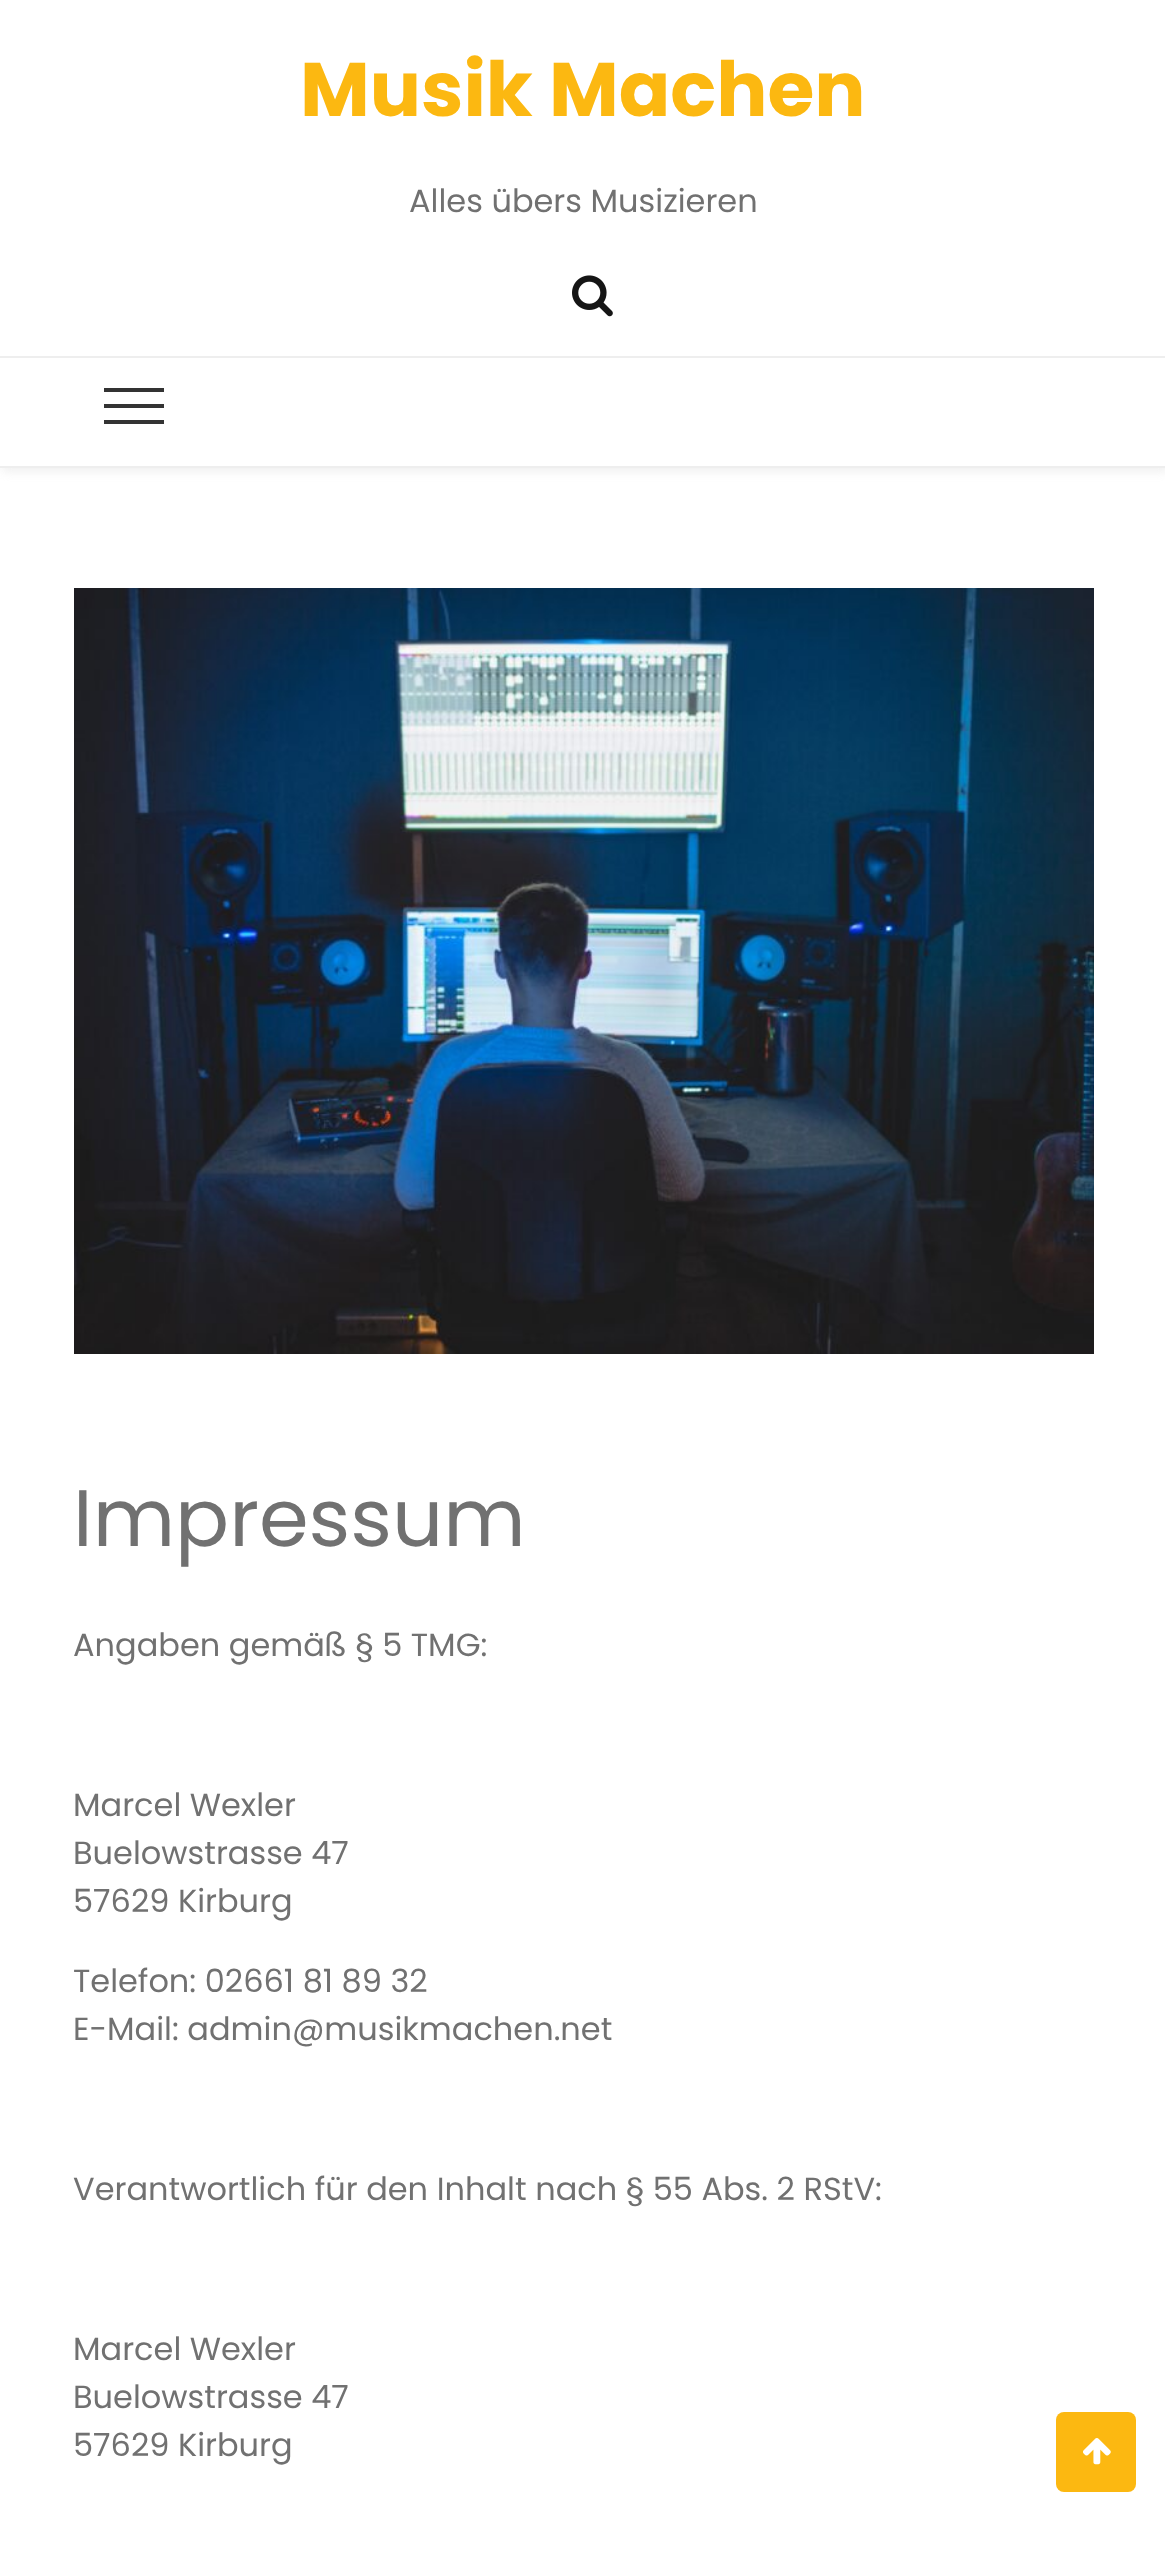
<svg xmlns="http://www.w3.org/2000/svg" width="1165" height="2556">
<defs>
<clipPath id="clip1"><rect x="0" y="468" width="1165" height="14"/></clipPath>
</defs>
<rect width="100%" height="100%" fill="#fff"/>
<g clip-path="url(#clip1)">
<rect x="2" y="4" width="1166" height="468" fill="#ebebebbf" filter="blur(5px)"/>
</g>
<rect y="466" width="1165" height="2" fill="#eee"/>
<text x="300" y="116" style="font-family:Poppins;font-size:76px;font-weight:bold;fill:#fcb811">Musik Machen</text>
<text x="409" y="212" style="font-family:Poppins;font-size:32px;fill:#717171">Alles übers Musizieren</text>
<image x="572" y="275" width="41" height="42" href="media/1.png"/>
<rect y="356" width="1165" height="2" fill="#eee"/>
<rect x="104" y="388" width="60" height="4" fill="#333"/>
<rect x="104" y="404" width="60" height="4" fill="#333"/>
<rect x="104" y="420" width="60" height="4" fill="#333"/>
<image x="74" y="588" width="1020" height="766" href="media/2.png"/>
<text x="73" y="1546" style="font-family:Poppins;font-size:80px;fill:#717171">Impressum</text>
<text x="73" y="1656" style="font-family:Poppins;font-size:32px;fill:#717171">Angaben gemäß § 5 TMG:</text>
<text x="73" y="1816" style="font-family:Poppins;font-size:32px;fill:#717171">Marcel Wexler</text>
<text x="73" y="1864" style="font-family:Poppins;font-size:32px;fill:#717171">Buelowstrasse 47</text>
<text x="73" y="1912" style="font-family:Poppins;font-size:32px;fill:#717171">57629 Kirburg</text>
<text x="73" y="1992" style="font-family:Poppins;font-size:32px;fill:#717171">Telefon: 02661 81 89 32</text>
<text x="73" y="2040" style="font-family:Poppins;font-size:32px;fill:#717171">E-Mail: admin@musikmachen.net</text>
<text x="73" y="2200" style="font-family:Poppins;font-size:32px;fill:#717171">Verantwortlich für den Inhalt nach § 55 Abs. 2 RStV:</text>
<text x="73" y="2360" style="font-family:Poppins;font-size:32px;fill:#717171">Marcel Wexler</text>
<text x="73" y="2408" style="font-family:Poppins;font-size:32px;fill:#717171">Buelowstrasse 47</text>
<text x="73" y="2456" style="font-family:Poppins;font-size:32px;fill:#717171">57629 Kirburg</text>
<rect x="1056" y="2412" width="80" height="80" rx="8" fill="#fcb811"/>
<image x="1083" y="2438" width="28" height="27" href="media/3.png"/>
</svg>
